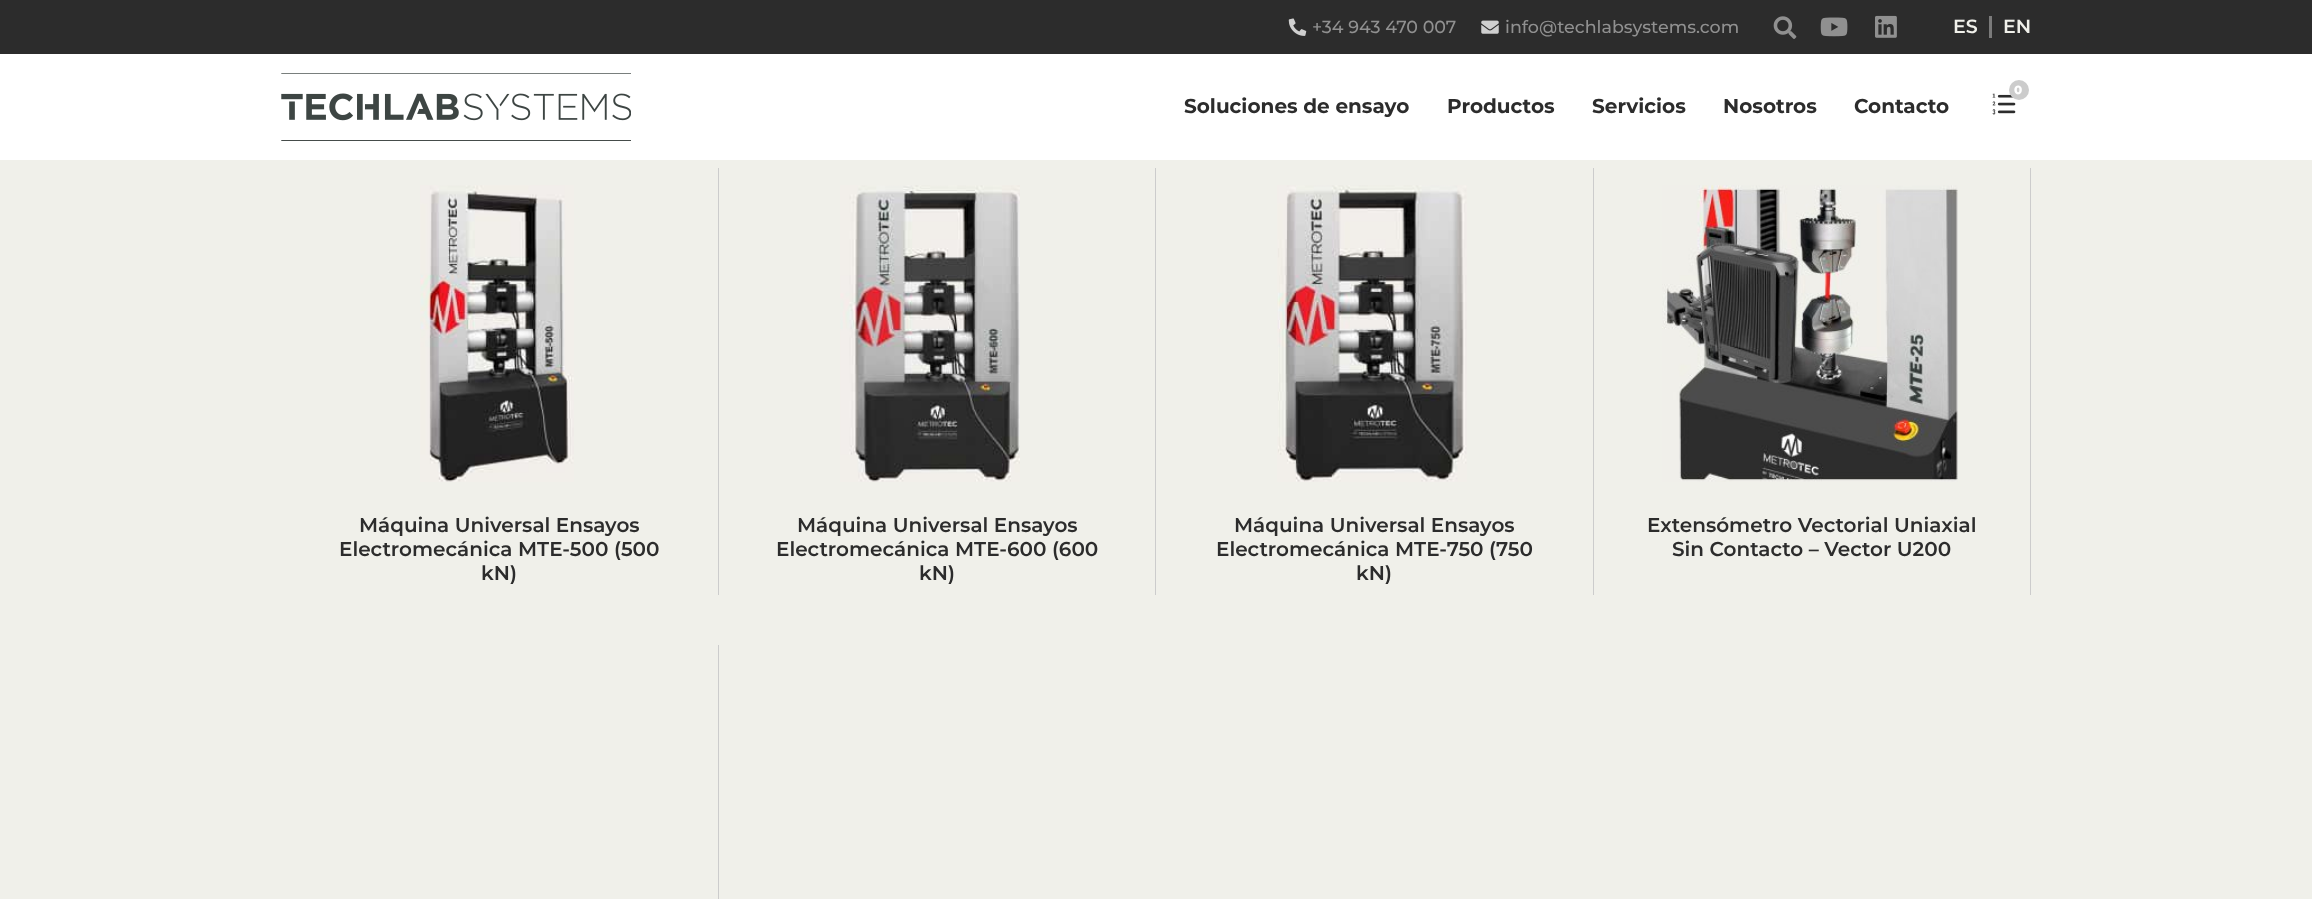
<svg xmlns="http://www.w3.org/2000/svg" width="2312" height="899">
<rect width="100%" height="100%" fill="#f0f0ea"/>
<rect width="2312" height="54" fill="#2c2c2c"/>
<image x="1288" y="18" width="19" height="18" href="media/1.png"/>
<text x="1312" y="33" style="font-family:Montserrat;font-size:17.5px;font-weight:500;fill:#909090">+34 943 470 007</text>
<image x="1481" y="20" width="18" height="14" href="media/2.png"/>
<text x="1505" y="33" style="font-family:Montserrat;font-size:17.5px;font-weight:500;fill:#909090">info@techlabsystems.com</text>
<image x="1773" y="16" width="24" height="23" href="media/3.png"/>
<image x="1820" y="17" width="28" height="20" href="media/4.png"/>
<image x="1875" y="15" width="22" height="23" href="media/5.png"/>
<text x="1953" y="33" style="font-family:Montserrat;font-size:19px;font-weight:600;fill:#f0f0ea">ES</text>
<rect x="1989" y="16" width="3" height="22" fill="#7a7a7a"/>
<text x="2003" y="33" style="font-family:Montserrat;font-size:19px;font-weight:600;fill:#f0f0ea">EN</text>
<rect y="54" width="2312" height="106" fill="#fff"/>
<image x="281" y="73" width="350" height="68" href="media/6.png"/>
<image x="1992" y="93" width="24" height="22" href="media/7.png"/>
<circle cx="2019" cy="90" r="10" fill="#ccc"/>
<text x="2014" y="94" style="font-family:Montserrat;font-size:12px;font-weight:800;fill:#fff">0</text>
<text x="1184" y="113" style="font-family:Montserrat;font-size:20px;font-weight:bold;fill:#2c2c2c">Soluciones de ensayo</text>
<text x="1447" y="113" style="font-family:Montserrat;font-size:20px;font-weight:bold;fill:#2c2c2c">Productos</text>
<text x="1592" y="113" style="font-family:Montserrat;font-size:20px;font-weight:bold;fill:#2c2c2c">Servicios</text>
<text x="1723" y="113" style="font-family:Montserrat;font-size:20px;font-weight:bold;fill:#2c2c2c">Nosotros</text>
<text x="1854" y="113" style="font-family:Montserrat;font-size:20px;font-weight:bold;fill:#2c2c2c">Contacto</text>
<rect x="718" y="168" width="1" height="427" fill="#ccc"/>
<image x="420" y="185" width="154" height="297" href="media/8.png"/>
<text x="359" y="532" style="font-family:Montserrat;font-size:20px;font-weight:600;fill:#2c2c2c">Máquina Universal Ensayos</text>
<text x="339" y="556" style="font-family:Montserrat;font-size:20px;font-weight:600;fill:#2c2c2c">Electromecánica MTE-500 (500</text>
<text x="481" y="580" style="font-family:Montserrat;font-size:20px;font-weight:600;fill:#2c2c2c">kN)</text>
<rect x="1155" y="168" width="1" height="427" fill="#ccc"/>
<image x="840" y="185" width="180" height="297" href="media/9.png"/>
<text x="797" y="532" style="font-family:Montserrat;font-size:20px;font-weight:600;fill:#2c2c2c">Máquina Universal Ensayos</text>
<text x="776" y="556" style="font-family:Montserrat;font-size:20px;font-weight:600;fill:#2c2c2c">Electromecánica MTE-600 (600</text>
<text x="919" y="580" style="font-family:Montserrat;font-size:20px;font-weight:600;fill:#2c2c2c">kN)</text>
<rect x="1593" y="168" width="1" height="427" fill="#ccc"/>
<image x="1277" y="185" width="190" height="297" href="media/10.png"/>
<text x="1234" y="532" style="font-family:Montserrat;font-size:20px;font-weight:600;fill:#2c2c2c">Máquina Universal Ensayos</text>
<text x="1216" y="556" style="font-family:Montserrat;font-size:20px;font-weight:600;fill:#2c2c2c">Electromecánica MTE-750 (750</text>
<text x="1356" y="580" style="font-family:Montserrat;font-size:20px;font-weight:600;fill:#2c2c2c">kN)</text>
<rect x="2030" y="168" width="1" height="427" fill="#ccc"/>
<image x="1662" y="185" width="296" height="297" href="media/11.png"/>
<text x="1647" y="532" style="font-family:Montserrat;font-size:20px;font-weight:600;fill:#2c2c2c">Extensómetro Vectorial Uniaxial</text>
<text x="1672" y="556" style="font-family:Montserrat;font-size:20px;font-weight:600;fill:#2c2c2c">Sin Contacto – Vector U200</text>
<rect x="718" y="645" width="1" height="254" fill="#ccc"/>
</svg>
